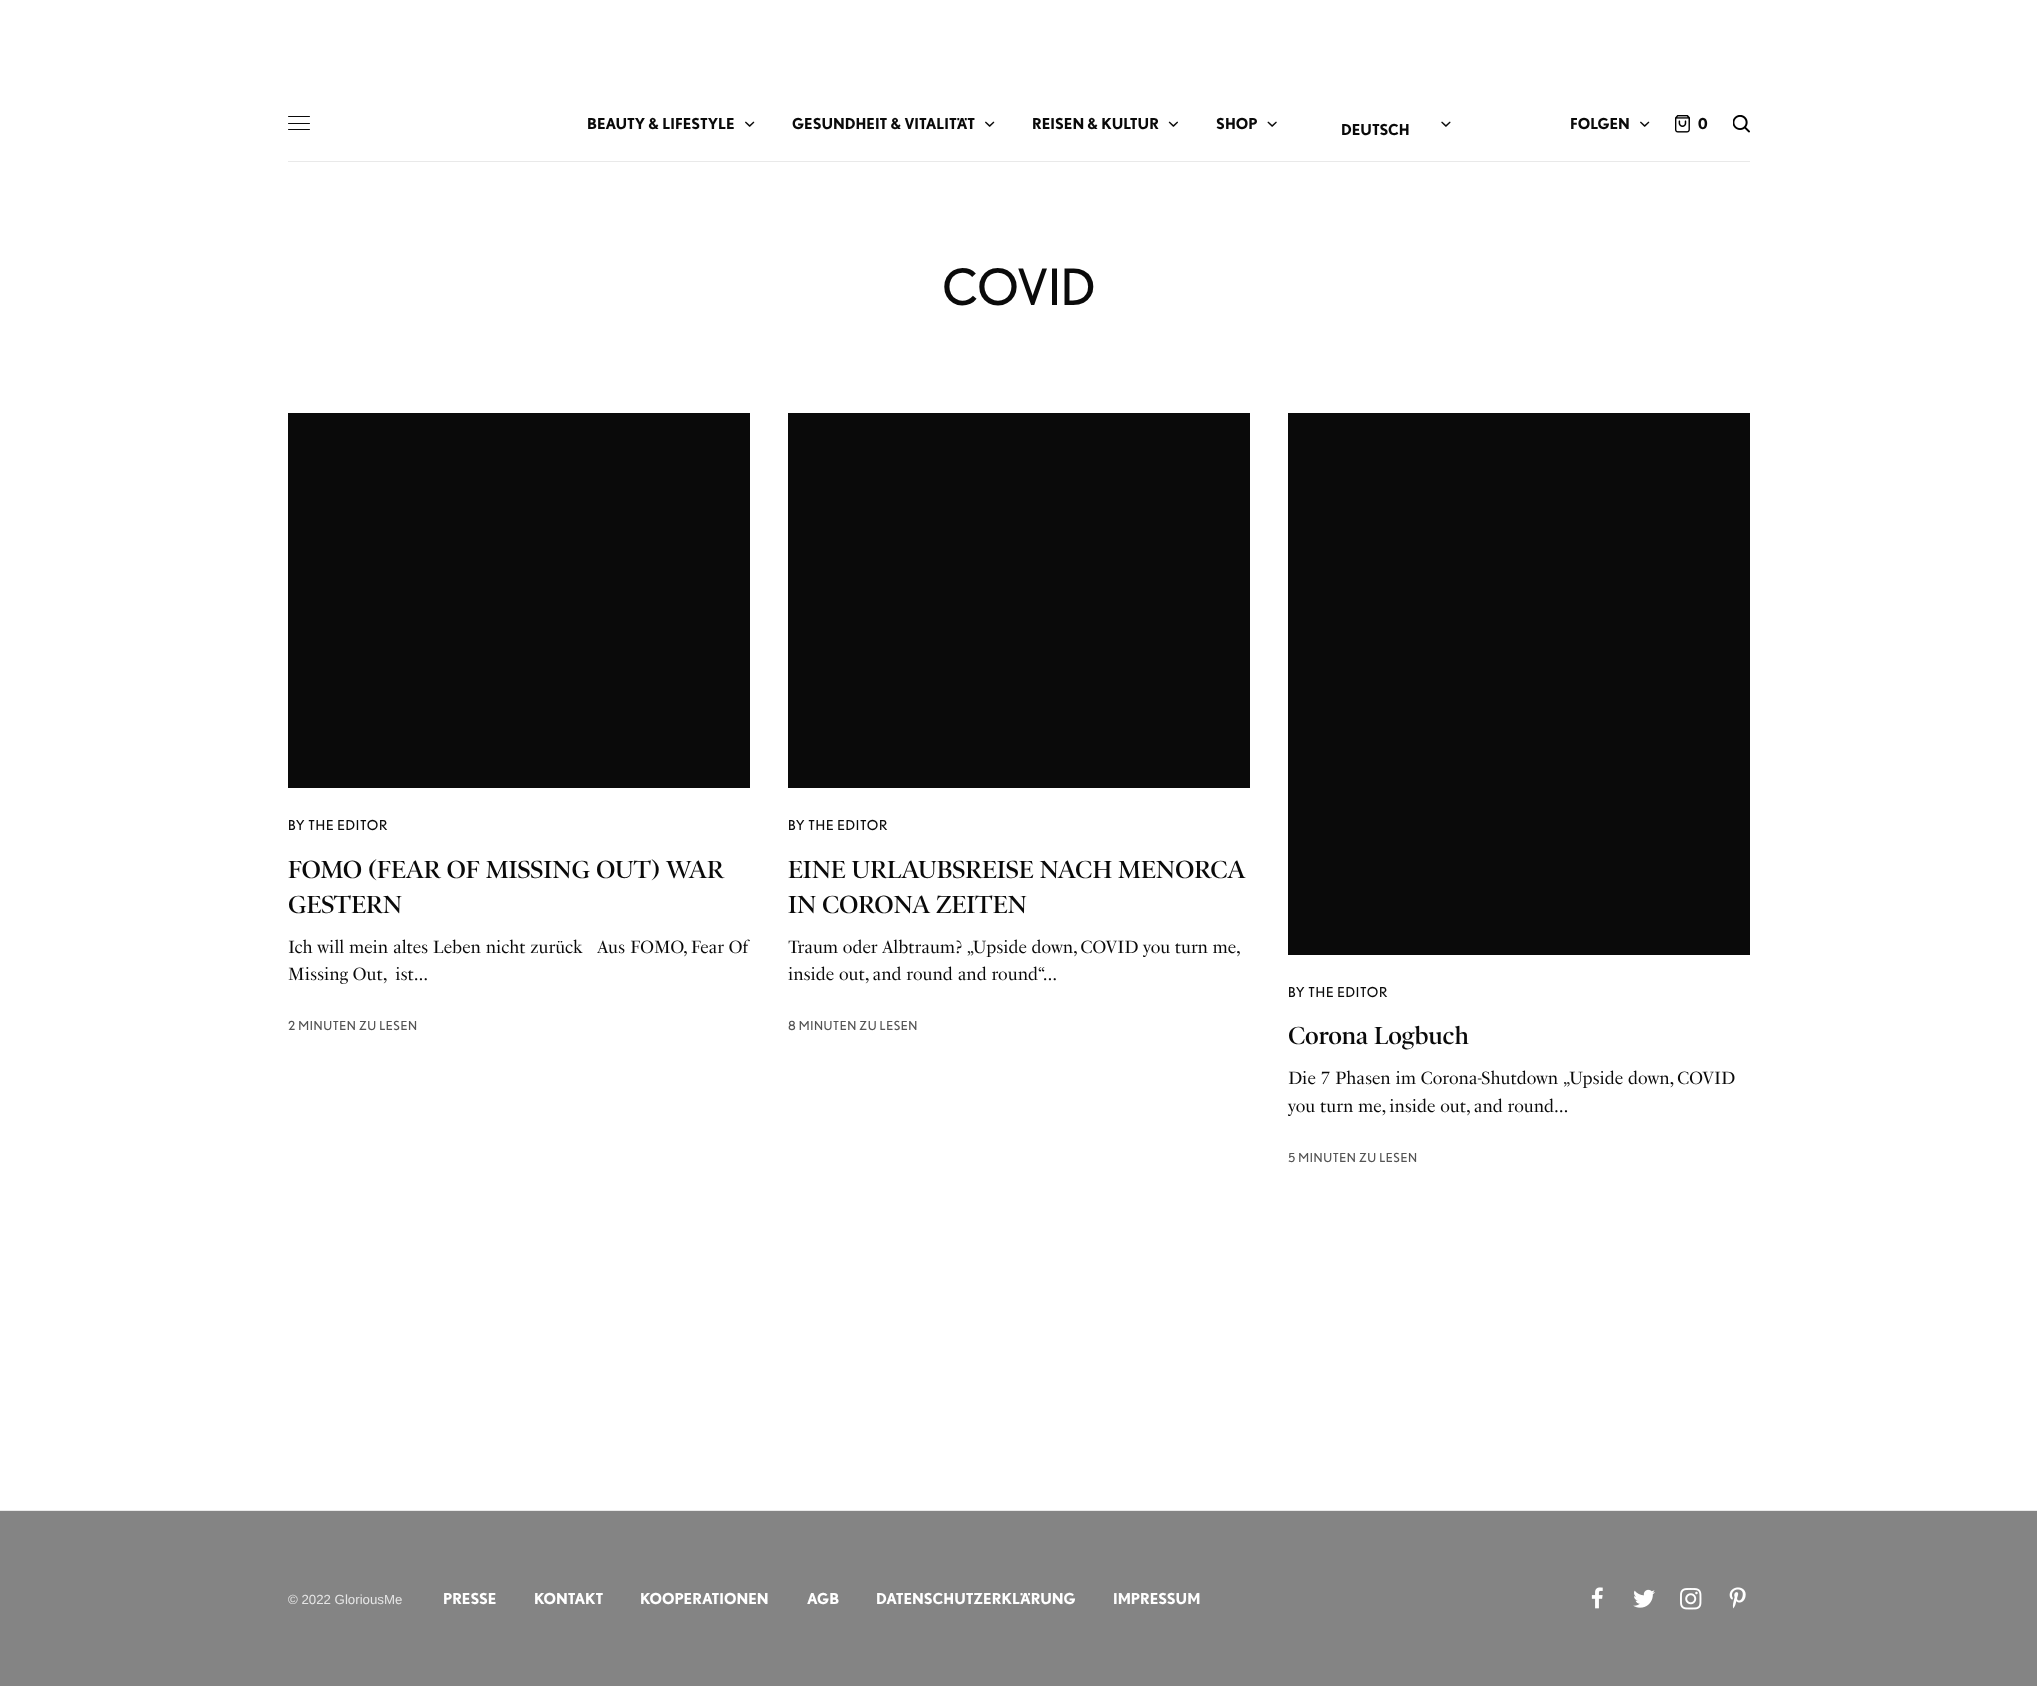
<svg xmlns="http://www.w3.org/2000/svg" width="2037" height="1686">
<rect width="100%" height="100%" fill="#fff"/>
<rect x="288" y="161" width="1462" height="1" fill="#e9e9e9"/>
<rect x="288" y="116" width="22" height="1" rx="0.5" fill="#0a0a0a"/>
<rect x="288" y="123" width="22" height="1" rx="0.5" fill="#0a0a0a"/>
<rect x="288" y="129" width="22" height="1" rx="0.5" fill="#0a0a0a"/>
<text x="587" y="129" style="font-family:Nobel;font-size:15px;font-weight:bold;fill:#0a0a0a">BEAUTY &amp; LIFESTYLE</text>
<image x="745" y="121" width="10" height="6" href="media/1.png"/>
<text x="792" y="129" style="font-family:Nobel;font-size:15px;font-weight:bold;fill:#0a0a0a">GESUNDHEIT &amp; VITALITÄT</text>
<image x="985" y="121" width="10" height="6" href="media/1.png"/>
<text x="1032" y="129" style="font-family:Nobel;font-size:15px;font-weight:bold;fill:#0a0a0a">REISEN &amp; KULTUR</text>
<image x="1168" y="121" width="10" height="6" href="media/2.png"/>
<text x="1216" y="129" style="font-family:Nobel;font-size:15px;font-weight:bold;fill:#0a0a0a">SHOP</text>
<image x="1267" y="121" width="10" height="6" href="media/3.png"/>
<text x="1341" y="135" style="font-family:Nobel;font-size:15px;font-weight:bold;fill:#0a0a0a">DEUTSCH</text>
<image x="1441" y="121" width="10" height="6" href="media/4.png"/>
<text x="1570" y="129" style="font-family:Nobel;font-size:15px;font-weight:bold;fill:#0a0a0a">FOLGEN</text>
<image x="1640" y="121" width="10" height="6" href="media/5.png"/>
<image x="1675" y="115" width="15" height="18" href="media/6.png"/>
<text x="1698" y="129" style="font-family:Nobel;font-size:15px;font-weight:bold;fill:#0a0a0a">0</text>
<image x="1733" y="115" width="17" height="18" href="media/7.png"/>
<text x="942" y="305" style="font-family:Nobel;font-size:50px;fill:#0a0a0a">COVID</text>
<rect x="288" y="413" width="462" height="375" fill="#0a0a0a"/>
<text x="288" y="830" style="font-family:Nobel;font-size:13.75px;letter-spacing:0.75px;fill:#0a0a0a">BY THE EDITOR</text>
<text x="288" y="878" style="font-family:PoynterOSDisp;font-size:25px;font-weight:600;fill:#0a0a0a">FOMO (FEAR OF MISSING OUT) WAR</text>
<text x="288" y="913" style="font-family:PoynterOSDisp;font-size:25px;font-weight:600;fill:#0a0a0a">GESTERN</text>
<text x="288" y="953" style="font-family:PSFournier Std;font-size:17.5px;fill:#0a0a0a" xml:space="preserve">Ich will mein altes Leben nicht zurück   Aus FOMO, Fear Of</text>
<text x="288" y="980" style="font-family:PSFournier Std;font-size:17.5px;fill:#0a0a0a" xml:space="preserve">Missing Out,  ist…</text>
<text x="288" y="1030" style="font-family:Nobel;font-size:12.5px;letter-spacing:0.6px;fill:#545454">2 MINUTEN ZU LESEN</text>
<rect x="788" y="413" width="462" height="375" fill="#0a0a0a"/>
<text x="788" y="830" style="font-family:Nobel;font-size:13.75px;letter-spacing:0.75px;fill:#0a0a0a">BY THE EDITOR</text>
<text x="788" y="878" style="font-family:PoynterOSDisp;font-size:25px;font-weight:600;fill:#0a0a0a">EINE URLAUBSREISE NACH MENORCA</text>
<text x="788" y="913" style="font-family:PoynterOSDisp;font-size:25px;font-weight:600;fill:#0a0a0a">IN CORONA ZEITEN</text>
<text x="788" y="953" word-spacing="-0.25" style="font-family:PSFournier Std;font-size:17.5px;fill:#0a0a0a">Traum oder Albtraum? „Upside down, COVID you turn me,</text>
<text x="788" y="980" style="font-family:PSFournier Std;font-size:17.5px;fill:#0a0a0a">inside out, and round and round“…</text>
<text x="788" y="1030" style="font-family:Nobel;font-size:12.5px;letter-spacing:0.6px;fill:#545454">8 MINUTEN ZU LESEN</text>
<rect x="1288" y="413" width="462" height="542" fill="#0a0a0a"/>
<text x="1288" y="997" style="font-family:Nobel;font-size:13.75px;letter-spacing:0.75px;fill:#0a0a0a">BY THE EDITOR</text>
<text x="1288" y="1044" style="font-family:PoynterOSDisp;font-size:25px;font-weight:600;fill:#0a0a0a">Corona Logbuch</text>
<text x="1288" y="1084" style="font-family:PSFournier Std;font-size:17.5px;fill:#0a0a0a">Die 7 Phasen im Corona-Shutdown „Upside down, COVID</text>
<text x="1288" y="1112" style="font-family:PSFournier Std;font-size:17.5px;fill:#0a0a0a">you turn me, inside out, and round…</text>
<text x="1288" y="1162" style="font-family:Nobel;font-size:12.5px;letter-spacing:0.6px;fill:#545454">5 MINUTEN ZU LESEN</text>
<rect y="1511" width="2037" height="175" fill="#848484"/>
<rect y="1510" width="2037" height="1" fill="#e9e9e9"/>
<text x="288" y="1604" style="font-family:Liberation Sans;font-size:13.25px;fill:#e6e6e6">© 2022 GloriousMe</text>
<text x="443" y="1604" style="font-family:Nobel;font-size:15px;font-weight:bold;fill:#fff">PRESSE</text>
<text x="534" y="1604" style="font-family:Nobel;font-size:15px;font-weight:bold;fill:#fff">KONTAKT</text>
<text x="640" y="1604" style="font-family:Nobel;font-size:15px;font-weight:bold;fill:#fff">KOOPERATIONEN</text>
<text x="807" y="1604" style="font-family:Nobel;font-size:15px;font-weight:bold;fill:#fff">AGB</text>
<text x="876" y="1604" style="font-family:Nobel;font-size:15px;font-weight:bold;fill:#fff">DATENSCHUTZERKLÄRUNG</text>
<text x="1113" y="1604" style="font-family:Nobel;font-size:15px;font-weight:bold;fill:#fff">IMPRESSUM</text>
<image x="1591" y="1587" width="12" height="22" href="media/8.png"/>
<image x="1633" y="1589" width="22" height="19" href="media/9.png"/>
<image x="1680" y="1588" width="22" height="22" href="media/10.png"/>
<image x="1729" y="1587" width="17" height="22" href="media/11.png"/>
</svg>
